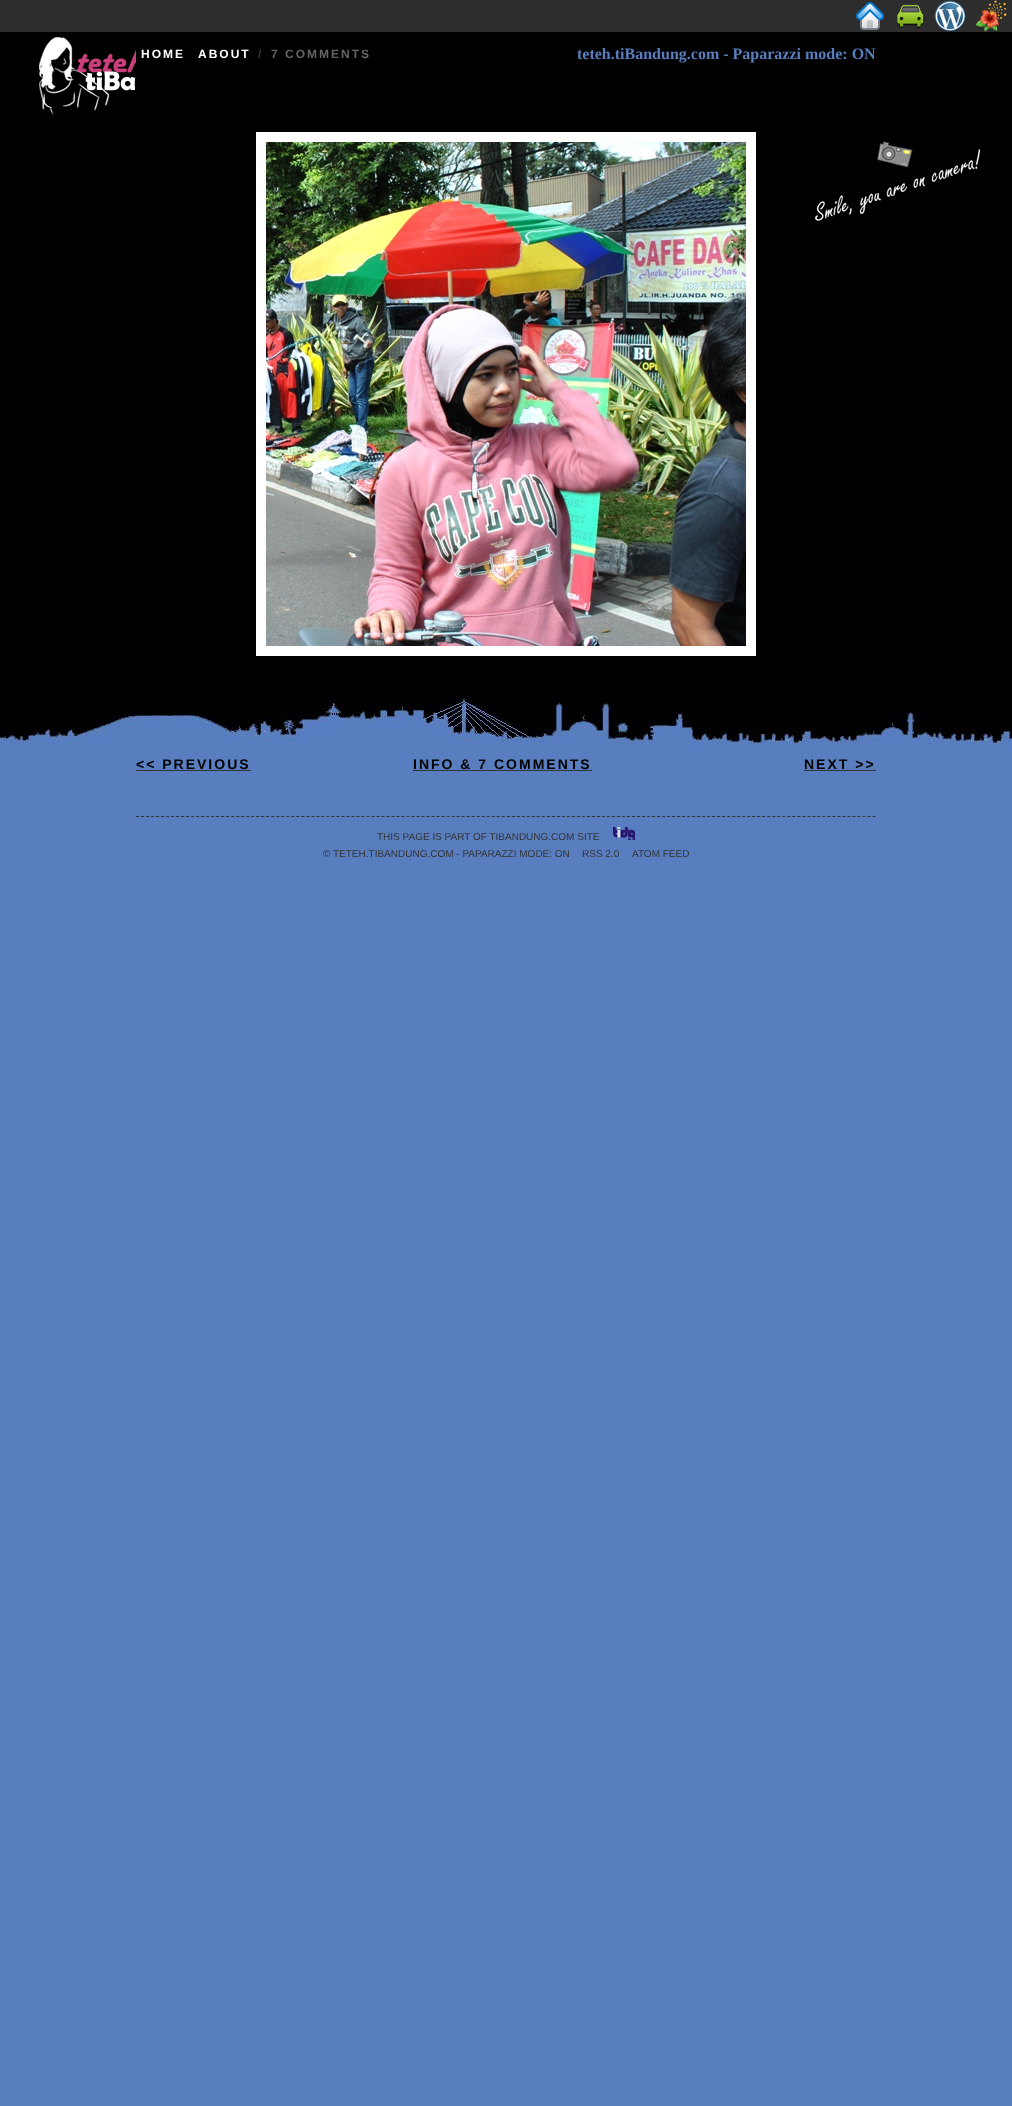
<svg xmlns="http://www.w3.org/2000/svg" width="1012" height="2106">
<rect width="100%" height="100%" fill="#587ebf"/>
<rect width="1012" height="32" fill="#2d2d2d"/>
<image x="856" y="2" width="28" height="28" href="media/1.png"/>
<image x="897" y="4" width="27" height="24" href="media/2.png"/>
<image x="934" y="0" width="32" height="32" href="media/3.png"/>
<image x="975" y="0" width="32" height="32" href="media/4.png"/>
<rect y="32" width="1012" height="664" fill="#000"/>
<image x="39" y="37" width="97" height="79" href="media/5.png"/>
<text x="141" y="58" style="font-family:Liberation Sans;font-size:12px;font-weight:bold;letter-spacing:2px;fill:#fff">HOME</text>
<text x="198" y="58" style="font-family:Liberation Sans;font-size:12px;font-weight:bold;letter-spacing:2px;fill:#fff">ABOUT</text>
<text x="258" y="58" style="font-family:Liberation Sans;font-size:12px;font-weight:bold;letter-spacing:2px;fill:#333">/</text>
<text x="271" y="58" style="font-family:Liberation Sans;font-size:12px;font-weight:bold;letter-spacing:2px;fill:#666">7 COMMENTS</text>
<text x="577" y="59" style="font-family:Liberation Serif;font-size:16px;font-weight:bold;fill:#587ebf">teteh.tiBandung.com - Paparazzi mode: ON</text>
<image x="815" y="140" width="165" height="81" href="media/6.png"/>
<rect x="256" y="132" width="500" height="524" fill="#fff"/>
<image x="266" y="142" width="480" height="504" href="media/7.png"/>
<image x="0" y="696" width="1012" height="50" href="media/8.png"/>
<text x="136" y="769" style="font-family:Liberation Sans;font-size:14px;font-weight:bold;letter-spacing:2px;fill:#000">&lt;&lt; PREVIOUS</text>
<rect x="136" y="770" width="115" height="1" fill="#333"/>
<text x="413" y="769" style="font-family:Liberation Sans;font-size:14px;font-weight:bold;letter-spacing:2px;fill:#000">INFO &amp; 7 COMMENTS</text>
<rect x="413" y="770" width="179" height="1" fill="#333"/>
<text x="804" y="769" style="font-family:Liberation Sans;font-size:14px;font-weight:bold;letter-spacing:2px;fill:#000">NEXT &gt;&gt;</text>
<rect x="804" y="770" width="72" height="1" fill="#333"/>
<path d="M136 816.5h740" fill="none" stroke="#333" stroke-dasharray="3 2.01"/>
<text x="377" y="840" style="font-family:Liberation Sans;font-size:10px;fill:#333">THIS PAGE IS PART OF TIBANDUNG.COM SITE</text>
<image x="613" y="827" width="22" height="13" href="media/9.png"/>
<text x="323" y="857" style="font-family:Liberation Sans;font-size:10px;fill:#333">© TETEH.TIBANDUNG.COM - PAPARAZZI MODE: ON</text>
<text x="582" y="857" style="font-family:Liberation Sans;font-size:10px;fill:#333">RSS 2.0</text>
<text x="632" y="857" style="font-family:Liberation Sans;font-size:10px;fill:#333">ATOM FEED</text>
</svg>
